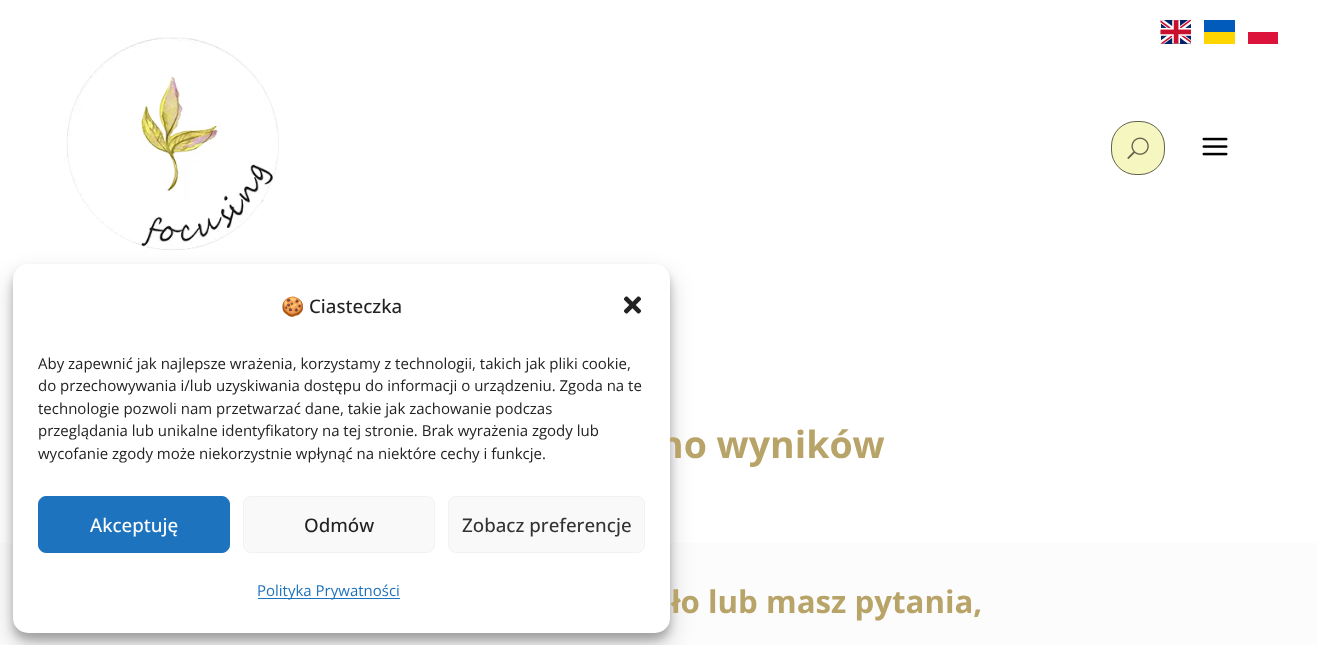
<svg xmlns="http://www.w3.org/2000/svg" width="1317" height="645">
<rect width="100%" height="100%" fill="#fff"/>
<rect y="543" width="1317" height="102" fill="#fcfcfc"/>
<rect x="13" y="271" width="657" height="369" rx="15" fill="#0000003b" filter="blur(4px)"/>
<image x="66" y="37" width="213" height="213" href="media/3.png"/>
<rect x="13" y="276" width="657" height="369" rx="15" fill="#00000030" filter="blur(12.5px)"/>
<text x="659" y="458" style="font-family:Open Sans;font-size:37.5px;font-weight:bold;fill:#b8a468">no wyników</text>
<rect x="13" y="264" width="657" height="369" rx="15" fill="#fff"/>
<text x="281" y="313" style="font-family:Noto Color Emoji;font-size:18.75px;fill:#222">🍪</text>
<text x="309" y="313" style="font-family:Open Sans;font-size:18.75px;font-weight:500;fill:#222">Ciasteczka</text>
<image x="623" y="296" width="19" height="18" href="media/1.png"/>
<text x="38" y="369" style="font-family:Open Sans;font-size:15px;fill:#222">Aby zapewnić jak najlepsze wrażenia, korzystamy z technologii, takich jak pliki cookie,</text>
<text x="38" y="391" style="font-family:Open Sans;font-size:15px;fill:#222">do przechowywania i/lub uzyskiwania dostępu do informacji o urządzeniu. Zgoda na te</text>
<text x="38" y="414" style="font-family:Open Sans;font-size:15px;fill:#222">technologie pozwoli nam przetwarzać dane, takie jak zachowanie podczas</text>
<text x="38" y="436" style="font-family:Open Sans;font-size:15px;fill:#222">przeglądania lub unikalne identyfikatory na tej stronie. Brak wyrażenia zgody lub</text>
<text x="38" y="459" style="font-family:Open Sans;font-size:15px;fill:#222">wycofanie zgody może niekorzystnie wpłynąć na niektóre cechy i funkcje.</text>
<rect x="38.5" y="496.5" width="191" height="56" rx="7.5" fill="#1e73be" stroke="#1e73be"/>
<text x="90" y="532" style="font-family:Open Sans;font-size:18.75px;font-weight:500;fill:#fff">Akceptuję</text>
<rect x="243.5" y="496.5" width="191" height="56" rx="7.5" fill="#f9f9f9" stroke="#f2f2f2"/>
<text x="304" y="532" style="font-family:Open Sans;font-size:18.75px;font-weight:500;fill:#222">Odmów</text>
<rect x="448.5" y="496.5" width="196" height="56" rx="7.5" fill="#f9f9f9" stroke="#f2f2f2"/>
<text x="462" y="532" style="font-family:Open Sans;font-size:18.75px;font-weight:500;fill:#333">Zobacz preferencje</text>
<rect x="258" y="598" width="142" height="1" fill="#1e73be"/>
<text x="257" y="596" style="font-family:Open Sans;font-size:15px;fill:#1e73be">Polityka Prywatności</text>
<image x="1160" y="20" width="31" height="24" href="media/2.png"/>
<rect x="1204" y="20" width="31" height="12" fill="#005bbb"/>
<rect x="1204" y="32" width="31" height="12" fill="#ffd500"/>
<rect x="1248" y="32" width="30" height="12" fill="#dc143c"/>
<rect x="1111" y="121" width="54" height="54" rx="25" fill="#f6f6c0"/>
<rect x="1111.5" y="121.5" width="53" height="53" rx="24.5" fill="none" stroke="#0e0e0ea3"/>
<image x="1127" y="137" width="22" height="22" href="media/4.png"/>
<image x="1202" y="137" width="26" height="19" href="media/5.png"/>
<text x="671" y="613" style="font-family:Open Sans;font-size:31.25px;font-weight:bold;fill:#b8a468">ło lub masz pytania,</text>
</svg>
